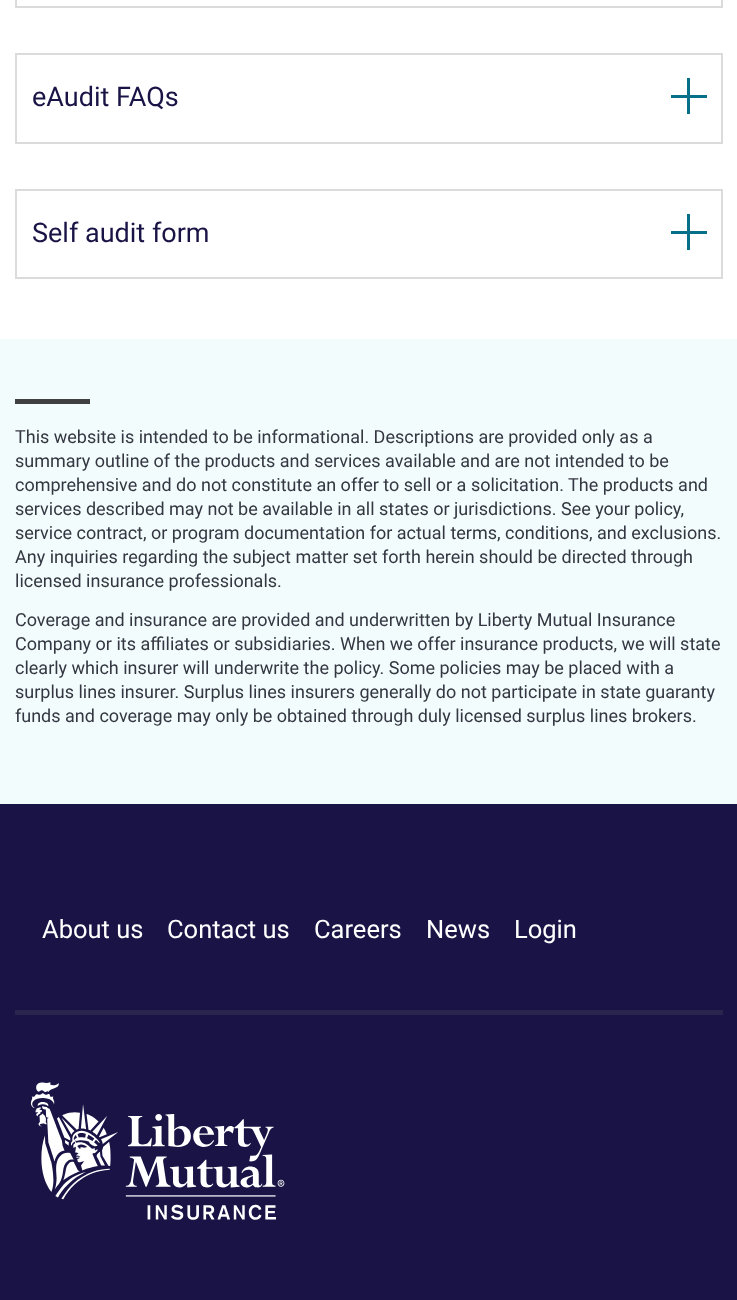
<svg xmlns="http://www.w3.org/2000/svg" width="737" height="1300">
<rect width="100%" height="100%" fill="#fff"/>
<rect x="16" y="-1" width="706" height="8" fill="none" stroke="#dbdbdb" stroke-width="2"/>
<rect x="16" y="54" width="706" height="89" fill="none" stroke="#dbdbdb" stroke-width="2"/>
<text x="32" y="106" style="font-family:Roboto;font-size:27px;fill:#1a1446">eAudit FAQs</text>
<rect x="671" y="95" width="36" height="3" fill="#067088"/>
<rect x="687" y="78" width="3" height="36" fill="#067088"/>
<rect x="16" y="190" width="706" height="88" fill="none" stroke="#dbdbdb" stroke-width="2"/>
<text x="32" y="242" style="font-family:Roboto;font-size:27px;fill:#1a1446">Self audit form</text>
<rect x="671" y="231" width="36" height="3" fill="#067088"/>
<rect x="687" y="214" width="3" height="36" fill="#067088"/>
<rect y="339" width="737" height="465" fill="#f2fcfd"/>
<rect x="15" y="399" width="75" height="5" fill="#404040"/>
<text x="15" y="443" style="font-family:Roboto;font-size:18px;fill:#343741">This website is intended to be informational. Descriptions are provided only as a</text>
<text x="15" y="467" style="font-family:Roboto;font-size:18px;fill:#343741">summary outline of the products and services available and are not intended to be</text>
<text x="15" y="491" style="font-family:Roboto;font-size:18px;fill:#343741">comprehensive and do not constitute an offer to sell or a solicitation. The products and</text>
<text x="15" y="515" style="font-family:Roboto;font-size:18px;fill:#343741">services described may not be available in all states or jurisdictions. See your policy,</text>
<text x="15" y="539" style="font-family:Roboto;font-size:18px;fill:#343741">service contract, or program documentation for actual terms, conditions, and exclusions.</text>
<text x="15" y="563" style="font-family:Roboto;font-size:18px;fill:#343741">Any inquiries regarding the subject matter set forth herein should be directed through</text>
<text x="15" y="587" style="font-family:Roboto;font-size:18px;fill:#343741">licensed insurance professionals.</text>
<text x="15" y="626" style="font-family:Roboto;font-size:18px;fill:#343741">Coverage and insurance are provided and underwritten by Liberty Mutual Insurance</text>
<text x="15" y="650" style="font-family:Roboto;font-size:18px;fill:#343741">Company or its affiliates or subsidiaries. When we offer insurance products, we will state</text>
<text x="15" y="674" style="font-family:Roboto;font-size:18px;fill:#343741">clearly which insurer will underwrite the policy. Some policies may be placed with a</text>
<text x="15" y="698" style="font-family:Roboto;font-size:18px;fill:#343741">surplus lines insurer. Surplus lines insurers generally do not participate in state guaranty</text>
<text x="15" y="722" style="font-family:Roboto;font-size:18px;fill:#343741">funds and coverage may only be obtained through duly licensed surplus lines brokers.</text>
<rect y="804" width="737" height="496" fill="#1a1446"/>
<rect x="15" y="1010" width="708" height="5" fill="#29254f"/>
<text x="42" y="938" style="font-family:Roboto;font-size:25.5px;fill:#fff">About us</text>
<text x="167" y="938" style="font-family:Roboto;font-size:25.5px;fill:#fff">Contact us</text>
<text x="314" y="938" style="font-family:Roboto;font-size:25.5px;fill:#fff">Careers</text>
<text x="426" y="938" style="font-family:Roboto;font-size:25.5px;fill:#fff">News</text>
<text x="514" y="938" style="font-family:Roboto;font-size:25.5px;fill:#fff">Login</text>
<image x="30" y="1082" width="255" height="138" href="media/1.png"/>
</svg>
